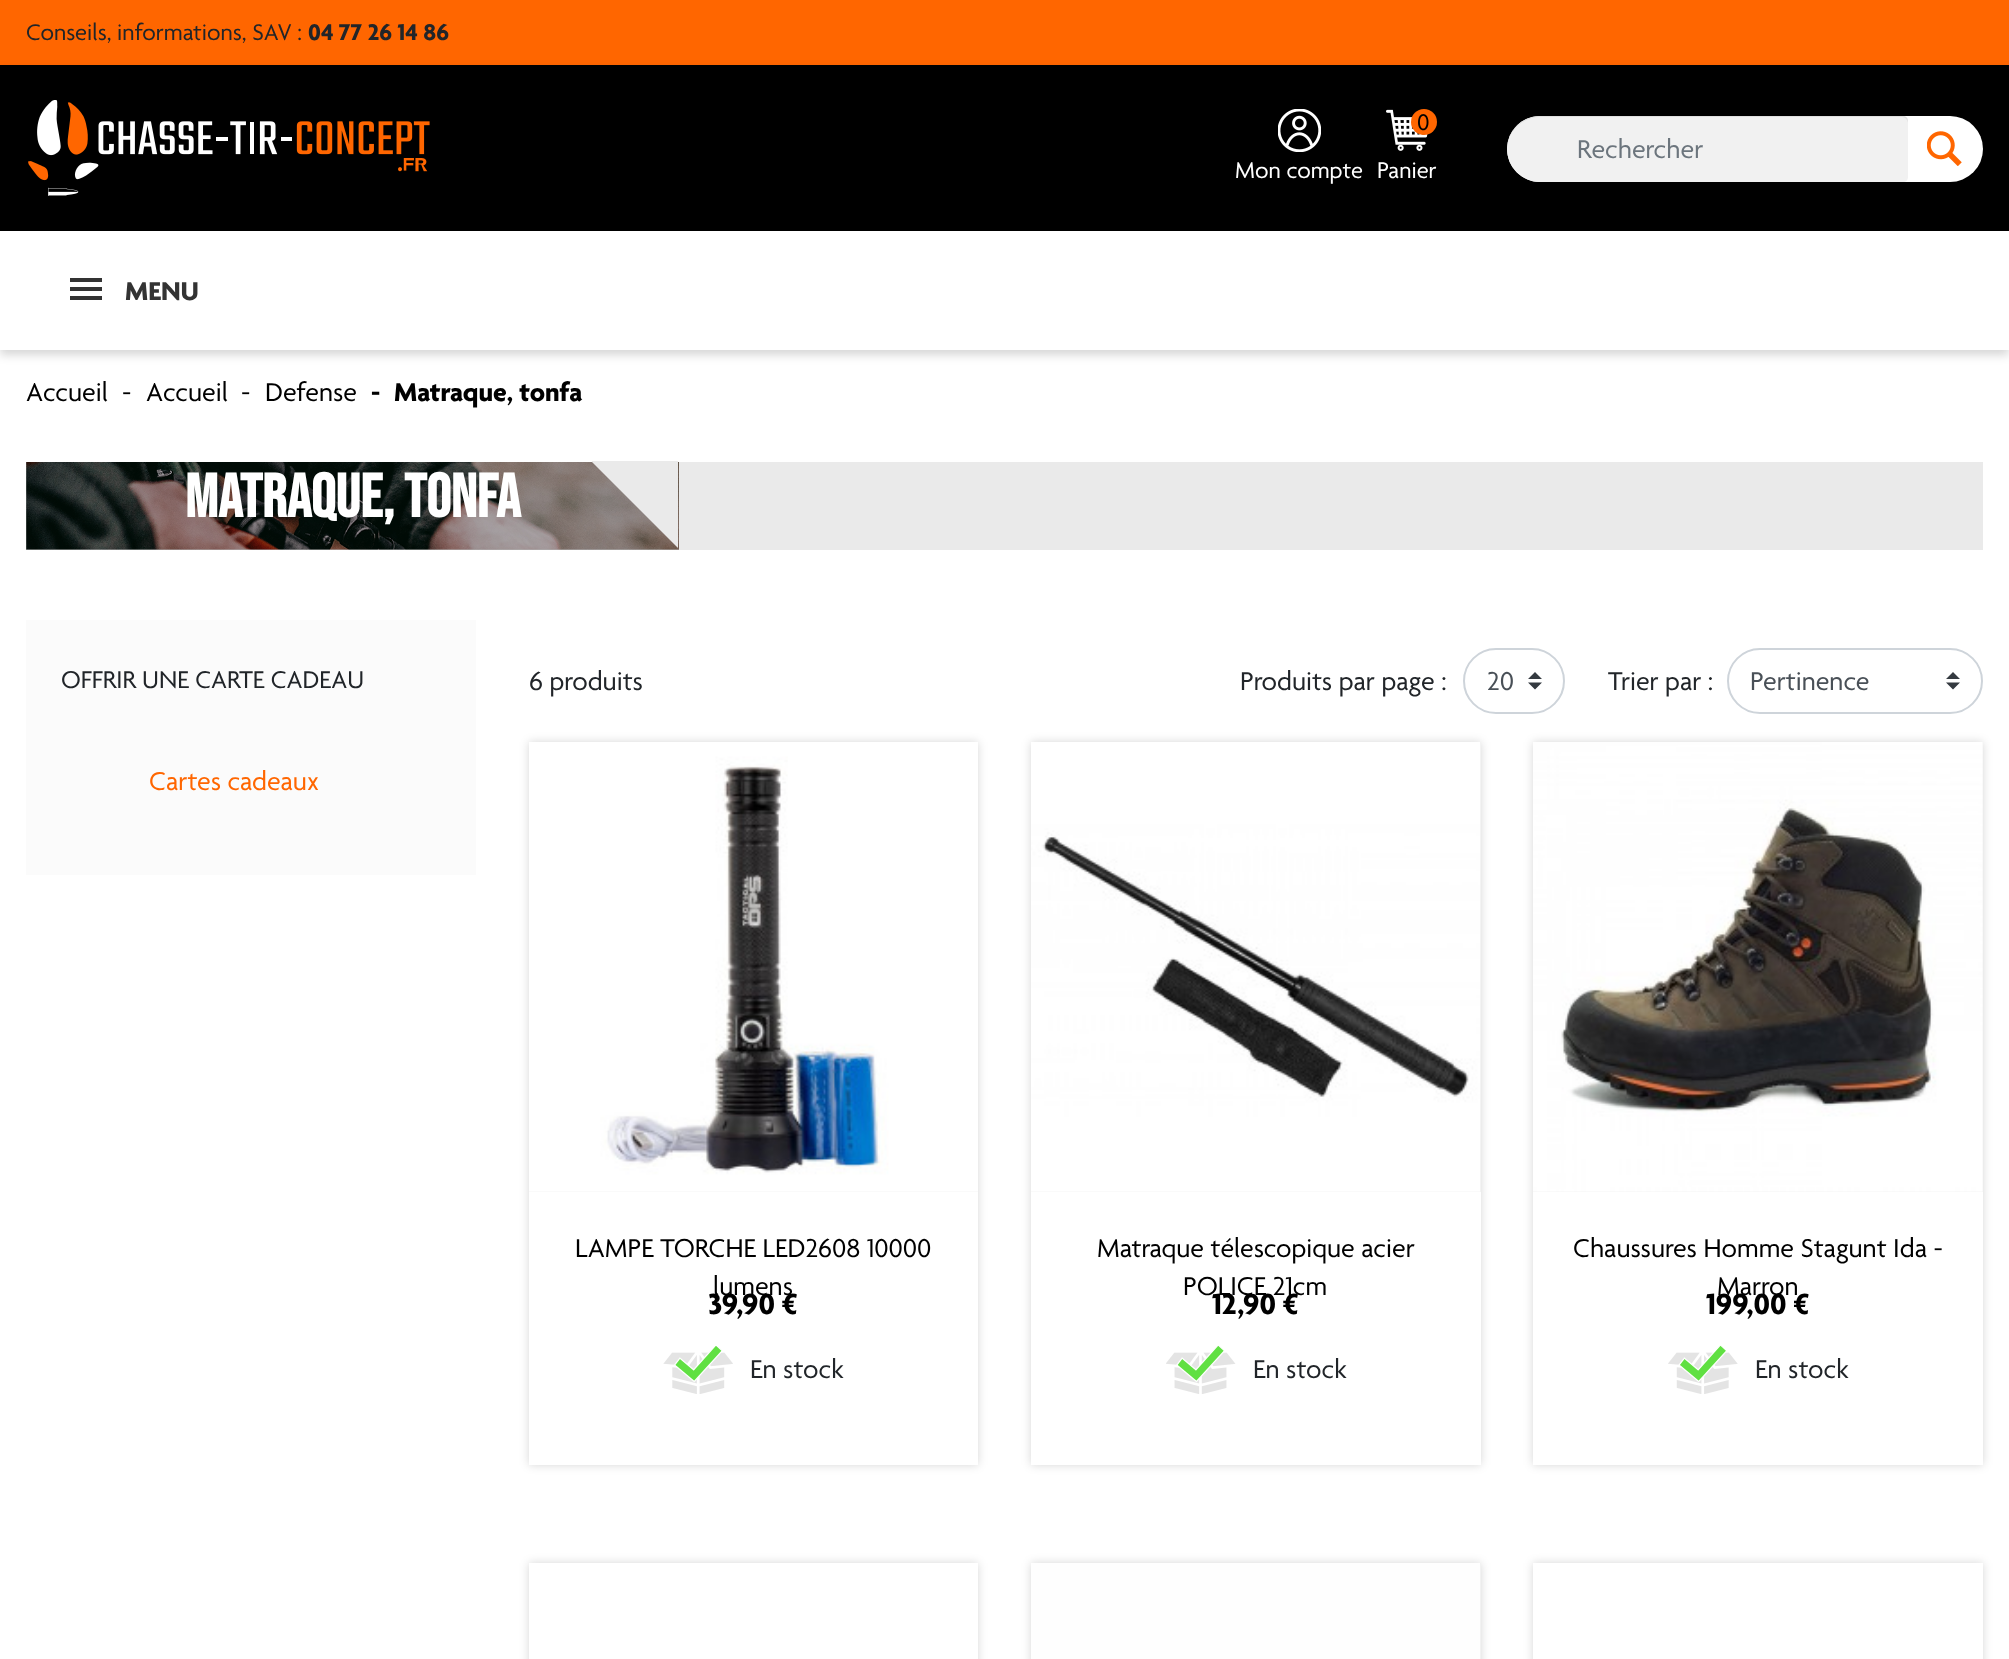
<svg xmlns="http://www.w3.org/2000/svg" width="2009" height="1659">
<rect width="100%" height="100%" fill="#fff"/>
<rect x="26" y="462" width="653" height="88" fill="#b3b3b3"/>
<rect width="2009" height="65" fill="#f60"/>
<text x="26" y="40" style="font-family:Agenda;font-size:24.5px;fill:#212529">Conseils, informations, SAV :</text>
<text x="308" y="40" style="font-family:Agenda;font-size:24.5px;font-weight:bold;fill:#212529">04 77 26 14 86</text>
<rect y="70" width="2009" height="285" fill="#00000029" filter="blur(5px)"/>
<rect y="65" width="2009" height="166" fill="#000"/>
<image x="28" y="100" width="402" height="96" href="media/1.png"/>
<image x="1386" y="109" width="42" height="42" href="media/2.png"/>
<circle cx="1424" cy="122" r="13" fill="#f60"/>
<text x="1417" y="130" style="font-family:Agenda;font-size:24.5px;fill:#000">0</text>
<text x="1377" y="178" style="font-family:Agenda;font-size:24.5px;fill:#fff">Panier</text>
<rect x="1507" y="116" width="476" height="66" rx="33" fill="#fff"/>
<path d="M1540 116h363c3 0 5 2 5 5v56c0 3-2 5-5 5h-363c-18 0-33-15-33-33c0-18 15-33 33-33z" fill="#f1f1f1"/>
<path d="M1540 117h362c3 0 6 3 6 6v-2c0-3-2-5-5-5h-363c-18 0-33 15-33 33v1c0-18 15-33 33-33z" fill="#00000012"/>
<text x="1577" y="158" style="font-family:Agenda;font-size:28px;fill:#6c757d">Rechercher</text>
<image x="1927" y="131" width="35" height="35" href="media/3.png"/>
<image x="1278" y="109" width="43" height="43" href="media/4.png"/>
<text x="1235" y="178" style="font-family:Agenda;font-size:24.5px;fill:#fff">Mon compte</text>
<rect y="231" width="2009" height="119" fill="#fff"/>
<rect x="70" y="278" width="32" height="4" fill="#333"/>
<rect x="70" y="287" width="32" height="4" fill="#333"/>
<rect x="70" y="296" width="32" height="4" fill="#333"/>
<text x="125" y="300" style="font-family:Agenda;font-size:28px;font-weight:bold;fill:#333">MENU</text>
<text x="26" y="401" style="font-family:Agenda;font-size:28px;fill:#000">Accueil</text>
<text x="122" y="401" style="font-family:Agenda;font-size:28px;fill:#000">-</text>
<text x="146" y="401" style="font-family:Agenda;font-size:28px;fill:#000">Accueil</text>
<text x="241" y="401" style="font-family:Agenda;font-size:28px;fill:#000">-</text>
<text x="265" y="401" style="font-family:Agenda;font-size:28px;fill:#000">Defense</text>
<text x="371" y="401" style="font-family:Agenda;font-size:28px;font-weight:bold;fill:#000">-</text>
<text x="394" y="401" style="font-family:Agenda;font-size:28px;font-weight:bold;fill:#000">Matraque, tonfa</text>
<image x="26" y="462" width="653" height="88" href="media/5.png"/>
<text x="185" y="517" style="font-family:Bebas Neue;font-size:61.25px;font-weight:bold;fill:#fff">Matraque, tonfa</text>
<rect x="679" y="462" width="1304" height="88" fill="#eaeaea"/>
<path d="M678 461v87l-86-86v-1z" fill="#eaeaea"/>
<rect x="26" y="620" width="450" height="255" fill="#fbfbfb"/>
<text x="61" y="688" style="font-family:Agenda;font-size:26.25px;fill:#212529">OFFRIR UNE CARTE CADEAU</text>
<text x="149" y="790" style="font-family:Agenda;font-size:28px;fill:#f60">Cartes cadeaux</text>
<text x="529" y="690" style="font-family:Agenda;font-size:28px;fill:#212529">6 produits</text>
<text x="1240" y="690" style="font-family:Agenda;font-size:28px;fill:#212529">Produits par page :</text>
<path d="M1535 672l-7 7h14zm0 17.5l-7-7h14z" fill="#343a40"/>
<rect x="1464" y="649" width="100" height="64" rx="32" fill="none" stroke="#ced4da" stroke-width="2"/>
<text x="1487" y="690" style="font-family:Agenda;font-size:28px;fill:#495057">20</text>
<text x="1608" y="690" style="font-family:Agenda;font-size:28px;fill:#212529">Trier par :</text>
<path d="M1953 672l-7 7h14zm0 17.5l-7-7h14z" fill="#343a40"/>
<rect x="1728" y="649" width="254" height="64" rx="32" fill="none" stroke="#ced4da" stroke-width="2"/>
<text x="1750" y="690" style="font-family:Agenda;font-size:28px;fill:#495057">Pertinence</text>
<rect x="529" y="742" width="449" height="723" fill="#00000029" filter="blur(5px)"/>
<rect x="529" y="1192" width="449" height="273" fill="#fff"/>
<rect x="529" y="1191" width="449" height="1" fill="#f3f3f3"/>
<image x="529" y="742" width="449" height="450" href="media/6.png"/>
<text x="575" y="1257" style="font-family:Agenda;font-size:28px;fill:#000">LAMPE TORCHE LED2608 10000</text>
<text x="713" y="1295" style="font-family:Agenda;font-size:28px;fill:#000">lumens</text>
<text x="708" y="1314" style="font-family:Agenda;font-size:31.5px;font-weight:bold;fill:#000">39,90 €</text>
<image x="663" y="1346" width="70" height="48" href="media/7.png"/>
<text x="750" y="1378" style="font-family:Agenda;font-size:28px;fill:#212529">En stock</text>
<rect x="1031" y="742" width="450" height="723" fill="#00000029" filter="blur(5px)"/>
<rect x="1031" y="1192" width="450" height="273" fill="#fff"/>
<rect x="1031" y="742" width="450" height="450" fill="#f3f3f3"/>
<image x="1031" y="742" width="449" height="450" href="media/8.png"/>
<text x="1097" y="1257" style="font-family:Agenda;font-size:28px;fill:#000">Matraque télescopique acier</text>
<text x="1183" y="1295" style="font-family:Agenda;font-size:28px;fill:#000">POLICE 21cm</text>
<text x="1212" y="1314" style="font-family:Agenda;font-size:31.5px;font-weight:bold;fill:#000">12,90 €</text>
<image x="1166" y="1345" width="70" height="49" href="media/9.png"/>
<text x="1253" y="1378" style="font-family:Agenda;font-size:28px;fill:#212529">En stock</text>
<rect x="1533" y="742" width="450" height="723" fill="#00000029" filter="blur(5px)"/>
<rect x="1533" y="1192" width="450" height="273" fill="#fff"/>
<rect x="1533" y="742" width="450" height="450" fill="#f3f3f3"/>
<image x="1533" y="742" width="450" height="450" href="media/10.png"/>
<text x="1573" y="1257" style="font-family:Agenda;font-size:28px;fill:#000">Chaussures Homme Stagunt Ida -</text>
<text x="1717" y="1295" style="font-family:Agenda;font-size:28px;fill:#000">Marron</text>
<text x="1706" y="1314" style="font-family:Agenda;font-size:31.5px;font-weight:bold;fill:#000">199,00 €</text>
<image x="1668" y="1345" width="70" height="49" href="media/11.png"/>
<text x="1755" y="1378" style="font-family:Agenda;font-size:28px;fill:#212529">En stock</text>
<rect x="529" y="1563" width="449" height="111" fill="#00000029" filter="blur(5px)"/>
<rect x="529" y="1563" width="449" height="96" fill="#fff"/>
<rect x="1031" y="1563" width="450" height="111" fill="#00000029" filter="blur(5px)"/>
<rect x="1480" y="1563" width="1" height="96" fill="#f2f2f2"/>
<rect x="1031" y="1563" width="449" height="96" fill="#fefefe"/>
<rect x="1533" y="1563" width="450" height="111" fill="#00000029" filter="blur(5px)"/>
<rect x="1533" y="1563" width="450" height="96" fill="#fff"/>
</svg>
